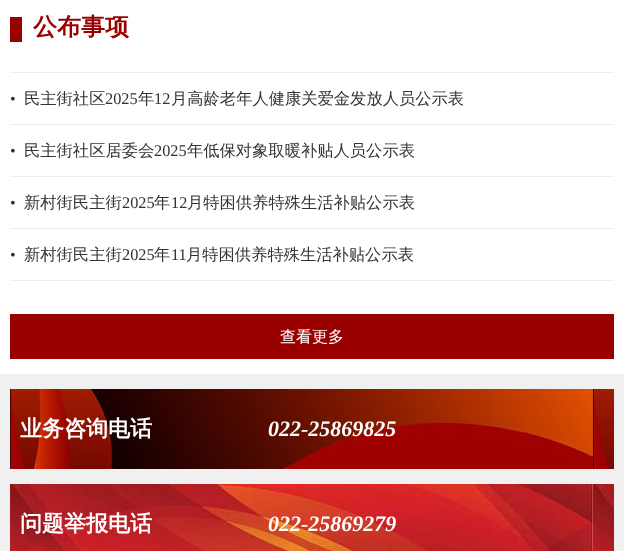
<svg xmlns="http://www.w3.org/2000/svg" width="624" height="551">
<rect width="100%" height="100%" fill="#fff"/>
<rect x="10" y="17" width="12" height="25" fill="#900"/>
<text x="33" y="35" style="font-family:WenQuanYi Zen Hei;font-size:24px;font-weight:bold;fill:#900">公布事项</text>
<rect x="10" y="72" width="604" height="1" fill="#eeeded"/>
<rect x="10" y="124" width="604" height="1" fill="#eeeded"/>
<text x="10" y="104" style="font-family:Liberation Serif;font-size:16.3px;fill:#333">•</text>
<text x="24" y="104" style="font-family:WenQuanYi Zen Hei;font-size:16.3px;font-weight:500;fill:#333">民主街社区</text>
<text x="105" y="104" style="font-family:Liberation Serif;font-size:16.3px;fill:#333">2025</text>
<text x="138" y="104" style="font-family:WenQuanYi Zen Hei;font-size:16.3px;font-weight:500;fill:#333">年</text>
<text x="154" y="104" style="font-family:Liberation Serif;font-size:16.3px;fill:#333">12</text>
<text x="171" y="104" style="font-family:WenQuanYi Zen Hei;font-size:16.3px;font-weight:500;fill:#333">月高龄老年人健康关爱金发放人员公示表</text>
<rect x="10" y="176" width="604" height="1" fill="#eeeded"/>
<text x="10" y="156" style="font-family:Liberation Serif;font-size:16.3px;fill:#333">•</text>
<text x="24" y="156" style="font-family:WenQuanYi Zen Hei;font-size:16.3px;font-weight:500;fill:#333">民主街社区居委会</text>
<text x="154" y="156" style="font-family:Liberation Serif;font-size:16.3px;fill:#333">2025</text>
<text x="187" y="156" style="font-family:WenQuanYi Zen Hei;font-size:16.3px;font-weight:500;fill:#333">年低保对象取暖补贴人员公示表</text>
<rect x="10" y="228" width="604" height="1" fill="#eeeded"/>
<text x="10" y="208" style="font-family:Liberation Serif;font-size:16.3px;fill:#333">•</text>
<text x="24" y="208" style="font-family:WenQuanYi Zen Hei;font-size:16.3px;font-weight:500;fill:#333">新村街民主街</text>
<text x="122" y="208" style="font-family:Liberation Serif;font-size:16.3px;fill:#333">2025</text>
<text x="154" y="208" style="font-family:WenQuanYi Zen Hei;font-size:16.3px;font-weight:500;fill:#333">年</text>
<text x="171" y="208" style="font-family:Liberation Serif;font-size:16.3px;fill:#333">12</text>
<text x="187" y="208" style="font-family:WenQuanYi Zen Hei;font-size:16.3px;font-weight:500;fill:#333">月特困供养特殊生活补贴公示表</text>
<rect x="10" y="280" width="604" height="1" fill="#eeeded"/>
<text x="10" y="260" style="font-family:Liberation Serif;font-size:16.3px;fill:#333">•</text>
<text x="24" y="260" style="font-family:WenQuanYi Zen Hei;font-size:16.3px;font-weight:500;fill:#333">新村街民主街</text>
<text x="122" y="260" style="font-family:Liberation Serif;font-size:16.3px;fill:#333">2025</text>
<text x="154" y="260" style="font-family:WenQuanYi Zen Hei;font-size:16.3px;font-weight:500;fill:#333">年</text>
<text x="171" y="260" style="font-family:Liberation Serif;font-size:16.3px;fill:#333">11</text>
<text x="186" y="260" style="font-family:WenQuanYi Zen Hei;font-size:16.3px;font-weight:500;fill:#333">月特困供养特殊生活补贴公示表</text>
<rect x="10" y="314" width="604" height="45" fill="#900"/>
<text x="280" y="342" style="font-family:WenQuanYi Zen Hei;font-size:16px;font-weight:500;fill:#fff">查看更多</text>
<rect y="374" width="624" height="177" fill="#f0f0f0"/>
<image x="10" y="389" width="604" height="80" href="media/1.png"/>
<text x="20" y="436" style="font-family:WenQuanYi Zen Hei;font-size:22px;font-weight:bold;fill:#fff">业务咨询电话</text>
<text x="268" y="436" style="font-family:Liberation Serif;font-size:22px;font-weight:bold;font-style:italic;fill:#fff">022-25869825</text>
<image x="10" y="484" width="604" height="67" href="media/2.png"/>
<text x="20" y="531" style="font-family:WenQuanYi Zen Hei;font-size:22px;font-weight:bold;fill:#fff">问题举报电话</text>
<text x="268" y="531" style="font-family:Liberation Serif;font-size:22px;font-weight:bold;font-style:italic;fill:#fff">022-25869279</text>
</svg>
